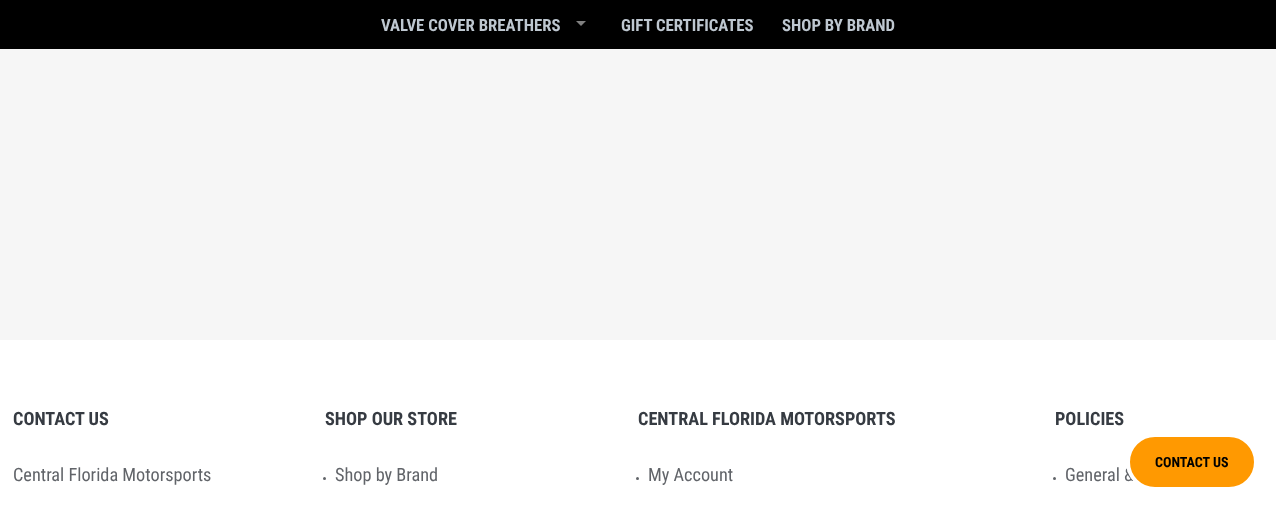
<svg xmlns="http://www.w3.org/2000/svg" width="1276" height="509">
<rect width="100%" height="100%" fill="#f6f6f6"/>
<rect width="1276" height="49" fill="#000"/>
<text x="381" y="31" style="font-family:Roboto Condensed;font-size:16.75px;font-weight:bold;fill:#bec7d0">VALVE COVER BREATHERS</text>
<path d="M576 21h10l-5 5z" fill="#808080"/>
<text x="621" y="31" style="font-family:Roboto Condensed;font-size:16.75px;font-weight:bold;fill:#bec7d0">GIFT CERTIFICATES</text>
<text x="782" y="31" style="font-family:Roboto Condensed;font-size:16.75px;font-weight:bold;fill:#bec7d0">SHOP BY BRAND</text>
<rect y="340" width="1276" height="169" fill="#fff"/>
<text x="13" y="425" style="font-family:Roboto Condensed;font-size:18.25px;font-weight:bold;fill:#363b42">CONTACT US</text>
<text x="13" y="481" style="font-family:Roboto Condensed;font-size:18.25px;fill:#616469">Central Florida Motorsports</text>
<text x="325" y="425" style="font-family:Roboto Condensed;font-size:18.25px;font-weight:bold;fill:#363b42">SHOP OUR STORE</text>
<circle cx="324.5" cy="478.5" r="1.5" fill="#616469"/>
<text x="335" y="481" style="font-family:Roboto Condensed;font-size:18.25px;fill:#616469">Shop by Brand</text>
<text x="638" y="425" style="font-family:Roboto Condensed;font-size:18.25px;font-weight:bold;fill:#363b42">CENTRAL FLORIDA MOTORSPORTS</text>
<circle cx="637.5" cy="478.5" r="1.5" fill="#616469"/>
<text x="648" y="481" style="font-family:Roboto Condensed;font-size:18.25px;fill:#616469">My Account</text>
<text x="1055" y="425" style="font-family:Roboto Condensed;font-size:18.25px;font-weight:bold;fill:#363b42">POLICIES</text>
<circle cx="1054.5" cy="478.5" r="1.5" fill="#616469"/>
<text x="1065" y="481" style="font-family:Roboto Condensed;font-size:18.25px;fill:#616469">General &amp;</text>
<rect x="1128" y="435" width="128" height="54" rx="27" fill="#ff9901" stroke="#fff" stroke-width="4"/>
<text x="1155" y="467" style="font-family:Roboto Condensed;font-size:14px;font-weight:bold;fill:#000">CONTACT US</text>
</svg>
